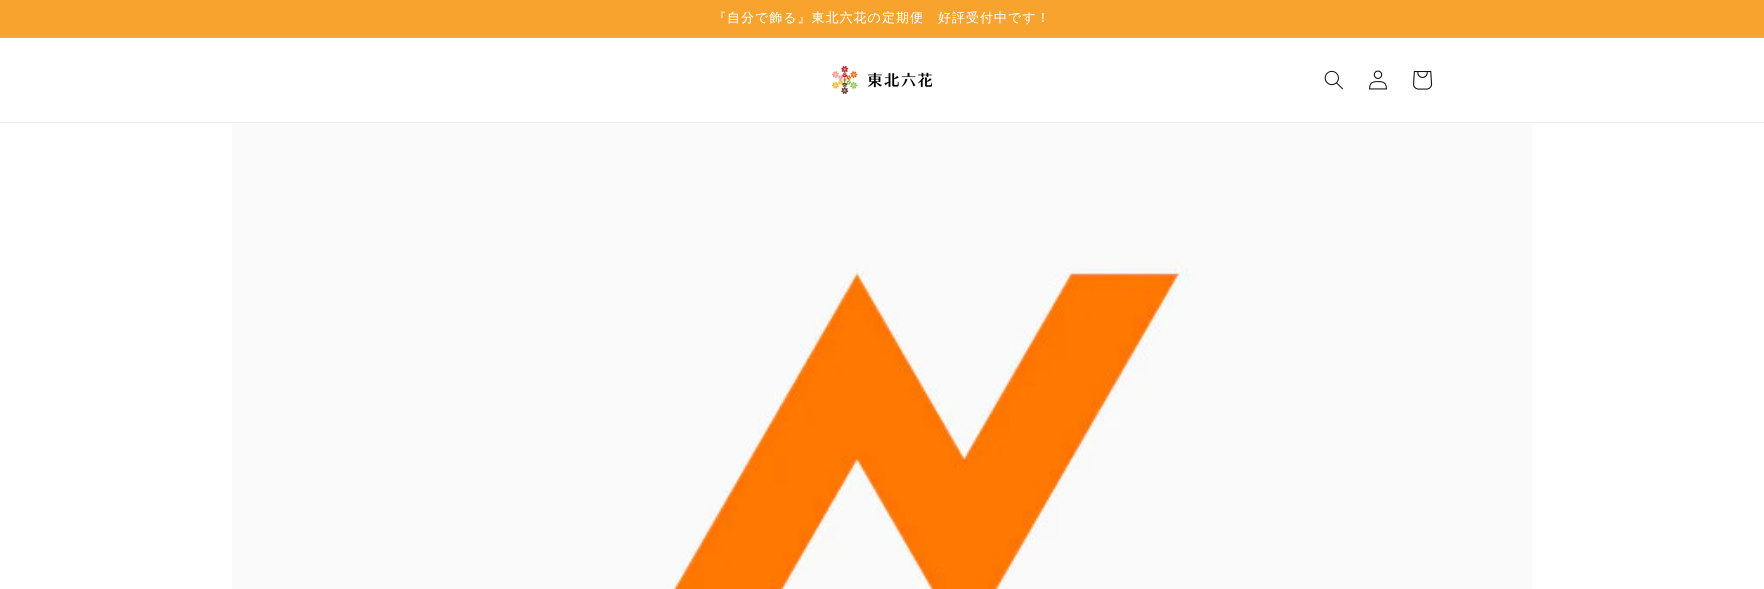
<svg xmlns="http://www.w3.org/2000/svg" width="1764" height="589">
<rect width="100%" height="100%" fill="#fff"/>
<rect width="1764" height="37" fill="#f7a32e"/>
<rect y="37" width="1764" height="1" fill="#f8aa3f"/>
<text x="713" y="22" style="font-family:WenQuanYi Zen Hei;font-size:13px;font-weight:500;letter-spacing:1px;fill:#fff">『自分で飾る』東北六花の定期便　好評受付中です！</text>
<rect y="122" width="1764" height="1" fill="#ececec"/>
<image x="832" y="66" width="100" height="28" href="media/1.png"/>
<image x="1324" y="70" width="19" height="20" href="media/2.png"/>
<image x="1369" y="70" width="18" height="20" href="media/3.png"/>
<image x="1413" y="71" width="20" height="19" href="media/4.png"/>
<image x="232" y="123" width="1300" height="466" href="media/5.png"/>
</svg>
